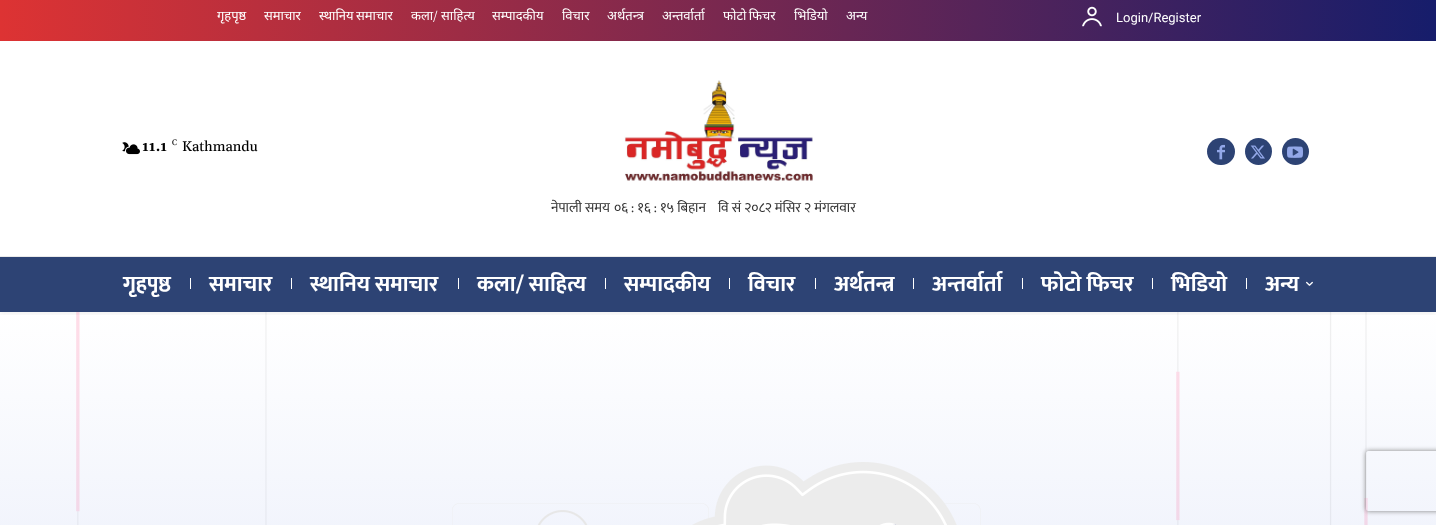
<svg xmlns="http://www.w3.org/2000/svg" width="1436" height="525">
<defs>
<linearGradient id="g1" gradientUnits="userSpaceOnUse" x1="1436" y1="21" x2="0" y2="20"><stop offset="0" stop-color="#161d6b"/><stop offset="1" stop-color="#d33"/></linearGradient>
<linearGradient id="g2" gradientUnits="userSpaceOnUse" x1="718" y1="312" x2="718" y2="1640"><stop offset="0" stop-color="#fff" stop-opacity="0.7"/><stop offset="1" stop-color="#92a7e8"/></linearGradient>
<clipPath id="clip1"><rect x="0" y="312" width="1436" height="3"/></clipPath>
<clipPath id="clip2"><path d="M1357 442h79v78h-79zm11 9h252c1 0 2 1 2 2v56c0 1-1 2-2 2h-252c-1 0-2-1-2-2v-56c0-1 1-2 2-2z" clip-rule="evenodd"/></clipPath>
</defs>
<rect width="100%" height="100%" fill="#fff"/>
<rect width="1436" height="41" fill="url(#g1)"/>
<text x="217" y="20" style="font-family:Noto Sans;font-size:13px;fill:#fff">गृहपृष्ठ</text>
<text x="264" y="20" style="font-family:Noto Sans;font-size:13px;fill:#fff">समाचार</text>
<text x="319" y="20" word-spacing="-1" style="font-family:Noto Sans;font-size:13px;fill:#fff">स्थानिय समाचार</text>
<text x="411" y="20" style="font-family:Noto Sans;font-size:13px;fill:#fff">कला</text>
<text x="433" y="20" style="font-family:Source Sans Pro;font-size:13px;fill:#fff">/</text>
<text x="441" y="20" style="font-family:Noto Sans;font-size:13px;fill:#fff">साहित्य</text>
<text x="492" y="20" style="font-family:Noto Sans;font-size:13px;fill:#fff">सम्पादकीय</text>
<text x="562" y="20" style="font-family:Noto Sans;font-size:13px;fill:#fff">विचार</text>
<text x="607" y="20" style="font-family:Noto Sans;font-size:13px;fill:#fff">अर्थतन्त्र</text>
<text x="662" y="20" style="font-family:Noto Sans;font-size:13px;fill:#fff">अन्तर्वार्ता</text>
<text x="723" y="20" word-spacing="-1" style="font-family:Noto Sans;font-size:13px;fill:#fff">फोटो फिचर</text>
<text x="794" y="20" style="font-family:Noto Sans;font-size:13px;fill:#fff">भिडियो</text>
<text x="846" y="20" style="font-family:Noto Sans;font-size:13px;fill:#fff">अन्य</text>
<image x="1082" y="6" width="20" height="21" href="media/1.png"/>
<text x="1116" y="22" style="font-family:Roboto;font-size:13px;fill:#fff">Login/Register</text>
<image x="122" y="142" width="18" height="13" href="media/2.png"/>
<text x="142" y="151" style="font-family:Gelasio;font-size:14px;font-weight:bold;fill:#000">11.1</text>
<text x="172" y="145" style="font-family:Gelasio;font-size:8px;fill:#000">C</text>
<text x="182" y="151" style="font-family:Gelasio;font-size:14px;font-weight:500;fill:#000">Kathmandu</text>
<image x="624" y="80" width="189" height="101" href="media/3.png"/>
<image x="551" y="199" width="306" height="15" href="media/4.png"/>
<rect x="1207" y="138" width="28" height="27" rx="13.5" fill="#2d4374"/>
<image x="1217" y="144" width="8" height="16" href="media/5.png"/>
<circle cx="1258.5" cy="151.5" r="13.5" fill="#2d4374"/>
<image x="1250" y="145" width="15" height="14" href="media/6.png"/>
<circle cx="1295.5" cy="151.5" r="13.5" fill="#2d4374"/>
<image x="1287" y="146" width="16" height="12" href="media/7.png"/>
<rect y="256" width="1436" height="1" fill="#eaeaea"/>
<image x="76" y="312" width="1292" height="213" href="media/9.png"/>
<rect y="312" width="1436" height="213" fill="url(#g2)"/>
<g clip-path="url(#clip1)">
<rect y="228" width="1436" height="86" fill="#0000000f" filter="blur(2px)"/>
</g>
<rect y="257" width="1436" height="55" fill="#2d4374"/>
<text x="123" y="291" style="font-family:Mukta;font-size:22px;font-weight:bold;fill:#fff">गृहपृष्ठ</text>
<rect x="190" y="278" width="1" height="11" fill="#fff"/>
<text x="209" y="291" style="font-family:Mukta;font-size:22px;font-weight:bold;fill:#fff">समाचार</text>
<rect x="291" y="278" width="1" height="11" fill="#fff"/>
<text x="310" y="291" style="font-family:Mukta;font-size:22px;font-weight:bold;fill:#fff">स्थानिय समाचार</text>
<rect x="458" y="278" width="1" height="11" fill="#fff"/>
<text x="477" y="291" style="font-family:Mukta;font-size:22px;font-weight:bold;fill:#fff">कला/ साहित्य</text>
<rect x="605" y="278" width="1" height="11" fill="#fff"/>
<text x="624" y="291" style="font-family:Mukta;font-size:22px;font-weight:bold;fill:#fff">सम्पादकीय</text>
<rect x="729" y="278" width="1" height="11" fill="#fff"/>
<text x="748" y="291" style="font-family:Mukta;font-size:22px;font-weight:bold;fill:#fff">विचार</text>
<rect x="815" y="278" width="1" height="11" fill="#fff"/>
<text x="834" y="291" style="font-family:Mukta;font-size:22px;font-weight:bold;fill:#fff">अर्थतन्त्र</text>
<rect x="913" y="278" width="1" height="11" fill="#fff"/>
<text x="932" y="291" style="font-family:Mukta;font-size:22px;font-weight:bold;fill:#fff">अन्तर्वार्ता</text>
<rect x="1022" y="278" width="1" height="11" fill="#fff"/>
<text x="1041" y="291" style="font-family:Mukta;font-size:22px;font-weight:bold;fill:#fff">फोटो फिचर</text>
<rect x="1152" y="278" width="1" height="11" fill="#fff"/>
<text x="1171" y="291" style="font-family:Mukta;font-size:22px;font-weight:bold;fill:#fff">भिडियो</text>
<rect x="1246" y="278" width="1" height="11" fill="#fff"/>
<text x="1265" y="291" style="font-family:Mukta;font-size:22px;font-weight:bold;fill:#fff">अन्य</text>
<image x="1306" y="281" width="7" height="5" href="media/8.png"/>
<image x="452" y="462" width="529" height="63" href="media/10.png"/>
<g clip-path="url(#clip2)">
<rect x="1366" y="451" width="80" height="60" rx="2" fill="#808080" filter="blur(2.5px)"/>
</g>
</svg>
